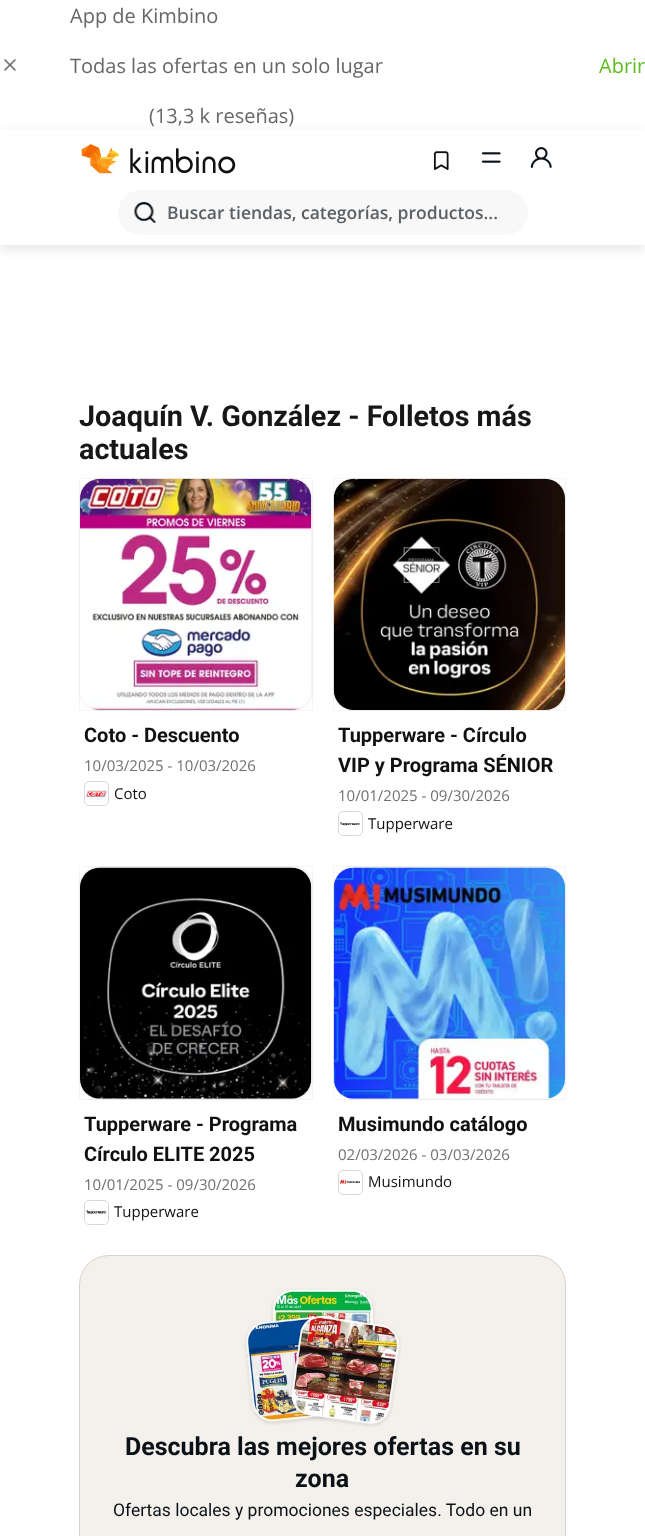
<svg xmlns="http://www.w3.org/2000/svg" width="645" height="1536">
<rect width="100%" height="100%" fill="#fff"/>
<image x="4" y="59" width="12" height="13" href="media/1.png"/>
<text x="70" y="23" style="font-family:Open Sans;font-size:20px;fill:#666">App de Kimbino</text>
<text x="70" y="73" style="font-family:Open Sans;font-size:20px;fill:#666">Todas las ofertas en un solo lugar</text>
<text x="149" y="123" style="font-family:Open Sans;font-size:20px;fill:#666">(13,3 k reseñas)</text>
<text x="599" y="73" style="font-family:Open Sans;font-size:20px;fill:#5dbd20">Abrir</text>
<rect y="134" width="645" height="115" fill="#0000001a" filter="blur(6px)"/>
<rect y="130" width="645" height="115" fill="#fff"/>
<image x="81" y="144" width="155" height="30" href="media/2.png"/>
<image x="433" y="151" width="16" height="19" href="media/3.png"/>
<image x="481" y="152" width="20" height="11" href="media/4.png"/>
<image x="530" y="147" width="22" height="21" href="media/5.png"/>
<rect x="118" y="190" width="410" height="45" rx="22.5" fill="#f8f8f8"/>
<image x="134" y="202" width="22" height="21" href="media/6.png"/>
<text x="167" y="219" style="font-family:Open Sans;font-size:17.5px;font-weight:600;fill:#5b6064">Buscar tiendas, categorías, productos...</text>
<text x="79" y="426" style="font-family:Roboto;font-size:28.75px;font-weight:bold;fill:#171717">Joaquín V. González - Folletos más</text>
<text x="79" y="459" style="font-family:Roboto;font-size:28.75px;font-weight:bold;fill:#171717">actuales</text>
<rect x="79" y="478" width="234" height="233" rx="20" fill="#f5f5f5"/>
<rect x="79.5" y="478.5" width="233" height="232" fill="none" stroke="#0000000a"/>
<image x="80" y="478" width="232" height="232" href="media/7.png"/>
<text x="84" y="742" style="font-family:Roboto;font-size:20px;font-weight:bold;fill:#111">Coto - Descuento</text>
<text x="84" y="771" style="font-family:Open Sans;font-size:15px;fill:#707070">10/03/2025 - 10/03/2026</text>
<rect x="84.5" y="781.5" width="24" height="24" rx="4.5" fill="none" stroke="#d9d9d9"/>
<image x="86" y="790" width="21" height="7" href="media/8.png"/>
<text x="114" y="799" style="font-family:Open Sans;font-size:15px;fill:#111">Coto</text>
<rect x="333" y="478" width="233" height="233" rx="20" fill="#f5f5f5"/>
<rect x="333.5" y="478.5" width="232" height="232" fill="none" stroke="#0000000a"/>
<image x="333" y="478" width="232" height="232" href="media/9.png"/>
<text x="338" y="742" style="font-family:Roboto;font-size:20px;font-weight:bold;fill:#111">Tupperware - Círculo</text>
<text x="338" y="772" style="font-family:Roboto;font-size:20px;font-weight:bold;fill:#111">VIP y Programa SÉNIOR</text>
<text x="338" y="801" style="font-family:Open Sans;font-size:15px;fill:#707070">10/01/2025 - 09/30/2026</text>
<rect x="338.5" y="811.5" width="24" height="24" rx="4.5" fill="none" stroke="#d9d9d9"/>
<image x="340" y="822" width="20" height="4" href="media/10.png"/>
<text x="368" y="829" style="font-family:Open Sans;font-size:15px;fill:#111">Tupperware</text>
<rect x="79" y="866" width="234" height="234" rx="20" fill="#f5f5f5"/>
<rect x="79.5" y="866.5" width="233" height="233" fill="none" stroke="#0000000a"/>
<image x="80" y="867" width="232" height="232" href="media/11.png"/>
<text x="84" y="1131" style="font-family:Roboto;font-size:20px;font-weight:bold;fill:#111">Tupperware - Programa</text>
<text x="84" y="1161" style="font-family:Roboto;font-size:20px;font-weight:bold;fill:#111">Círculo ELITE 2025</text>
<text x="84" y="1190" style="font-family:Open Sans;font-size:15px;fill:#707070">10/01/2025 - 09/30/2026</text>
<rect x="84.5" y="1200.5" width="24" height="24" rx="4.5" fill="none" stroke="#d9d9d9"/>
<image x="86" y="1210" width="21" height="5" href="media/12.png"/>
<text x="114" y="1217" style="font-family:Open Sans;font-size:15px;fill:#111">Tupperware</text>
<rect x="333" y="866" width="233" height="234" rx="20" fill="#f5f5f5"/>
<rect x="333.5" y="866.5" width="232" height="233" fill="none" stroke="#0000000a"/>
<image x="333" y="867" width="232" height="232" href="media/13.png"/>
<text x="338" y="1131" style="font-family:Roboto;font-size:20px;font-weight:bold;fill:#111">Musimundo catálogo</text>
<text x="338" y="1160" style="font-family:Open Sans;font-size:15px;fill:#707070">02/03/2026 - 03/03/2026</text>
<rect x="338.5" y="1170.5" width="24" height="24" rx="4.5" fill="none" stroke="#d9d9d9"/>
<image x="340" y="1179" width="20" height="6" href="media/14.png"/>
<text x="368" y="1187" style="font-family:Open Sans;font-size:15px;fill:#111">Musimundo</text>
<rect x="79" y="1255" width="487" height="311" rx="30" fill="#f4f0eb"/>
<rect x="79.5" y="1255.5" width="486" height="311" rx="29.5" fill="none" stroke="#0000001f"/>
<image x="244" y="1288" width="157" height="139" href="media/15.png"/>
<text x="125" y="1455" style="font-family:Roboto;font-size:25px;font-weight:bold;fill:#0a1217">Descubra las mejores ofertas en su</text>
<text x="295" y="1487" style="font-family:Roboto;font-size:25px;font-weight:bold;fill:#0a1217">zona</text>
<text x="113" y="1516" style="font-family:Roboto;font-size:17.5px;fill:#0a1217">Ofertas locales y promociones especiales. Todo en un</text>
</svg>
